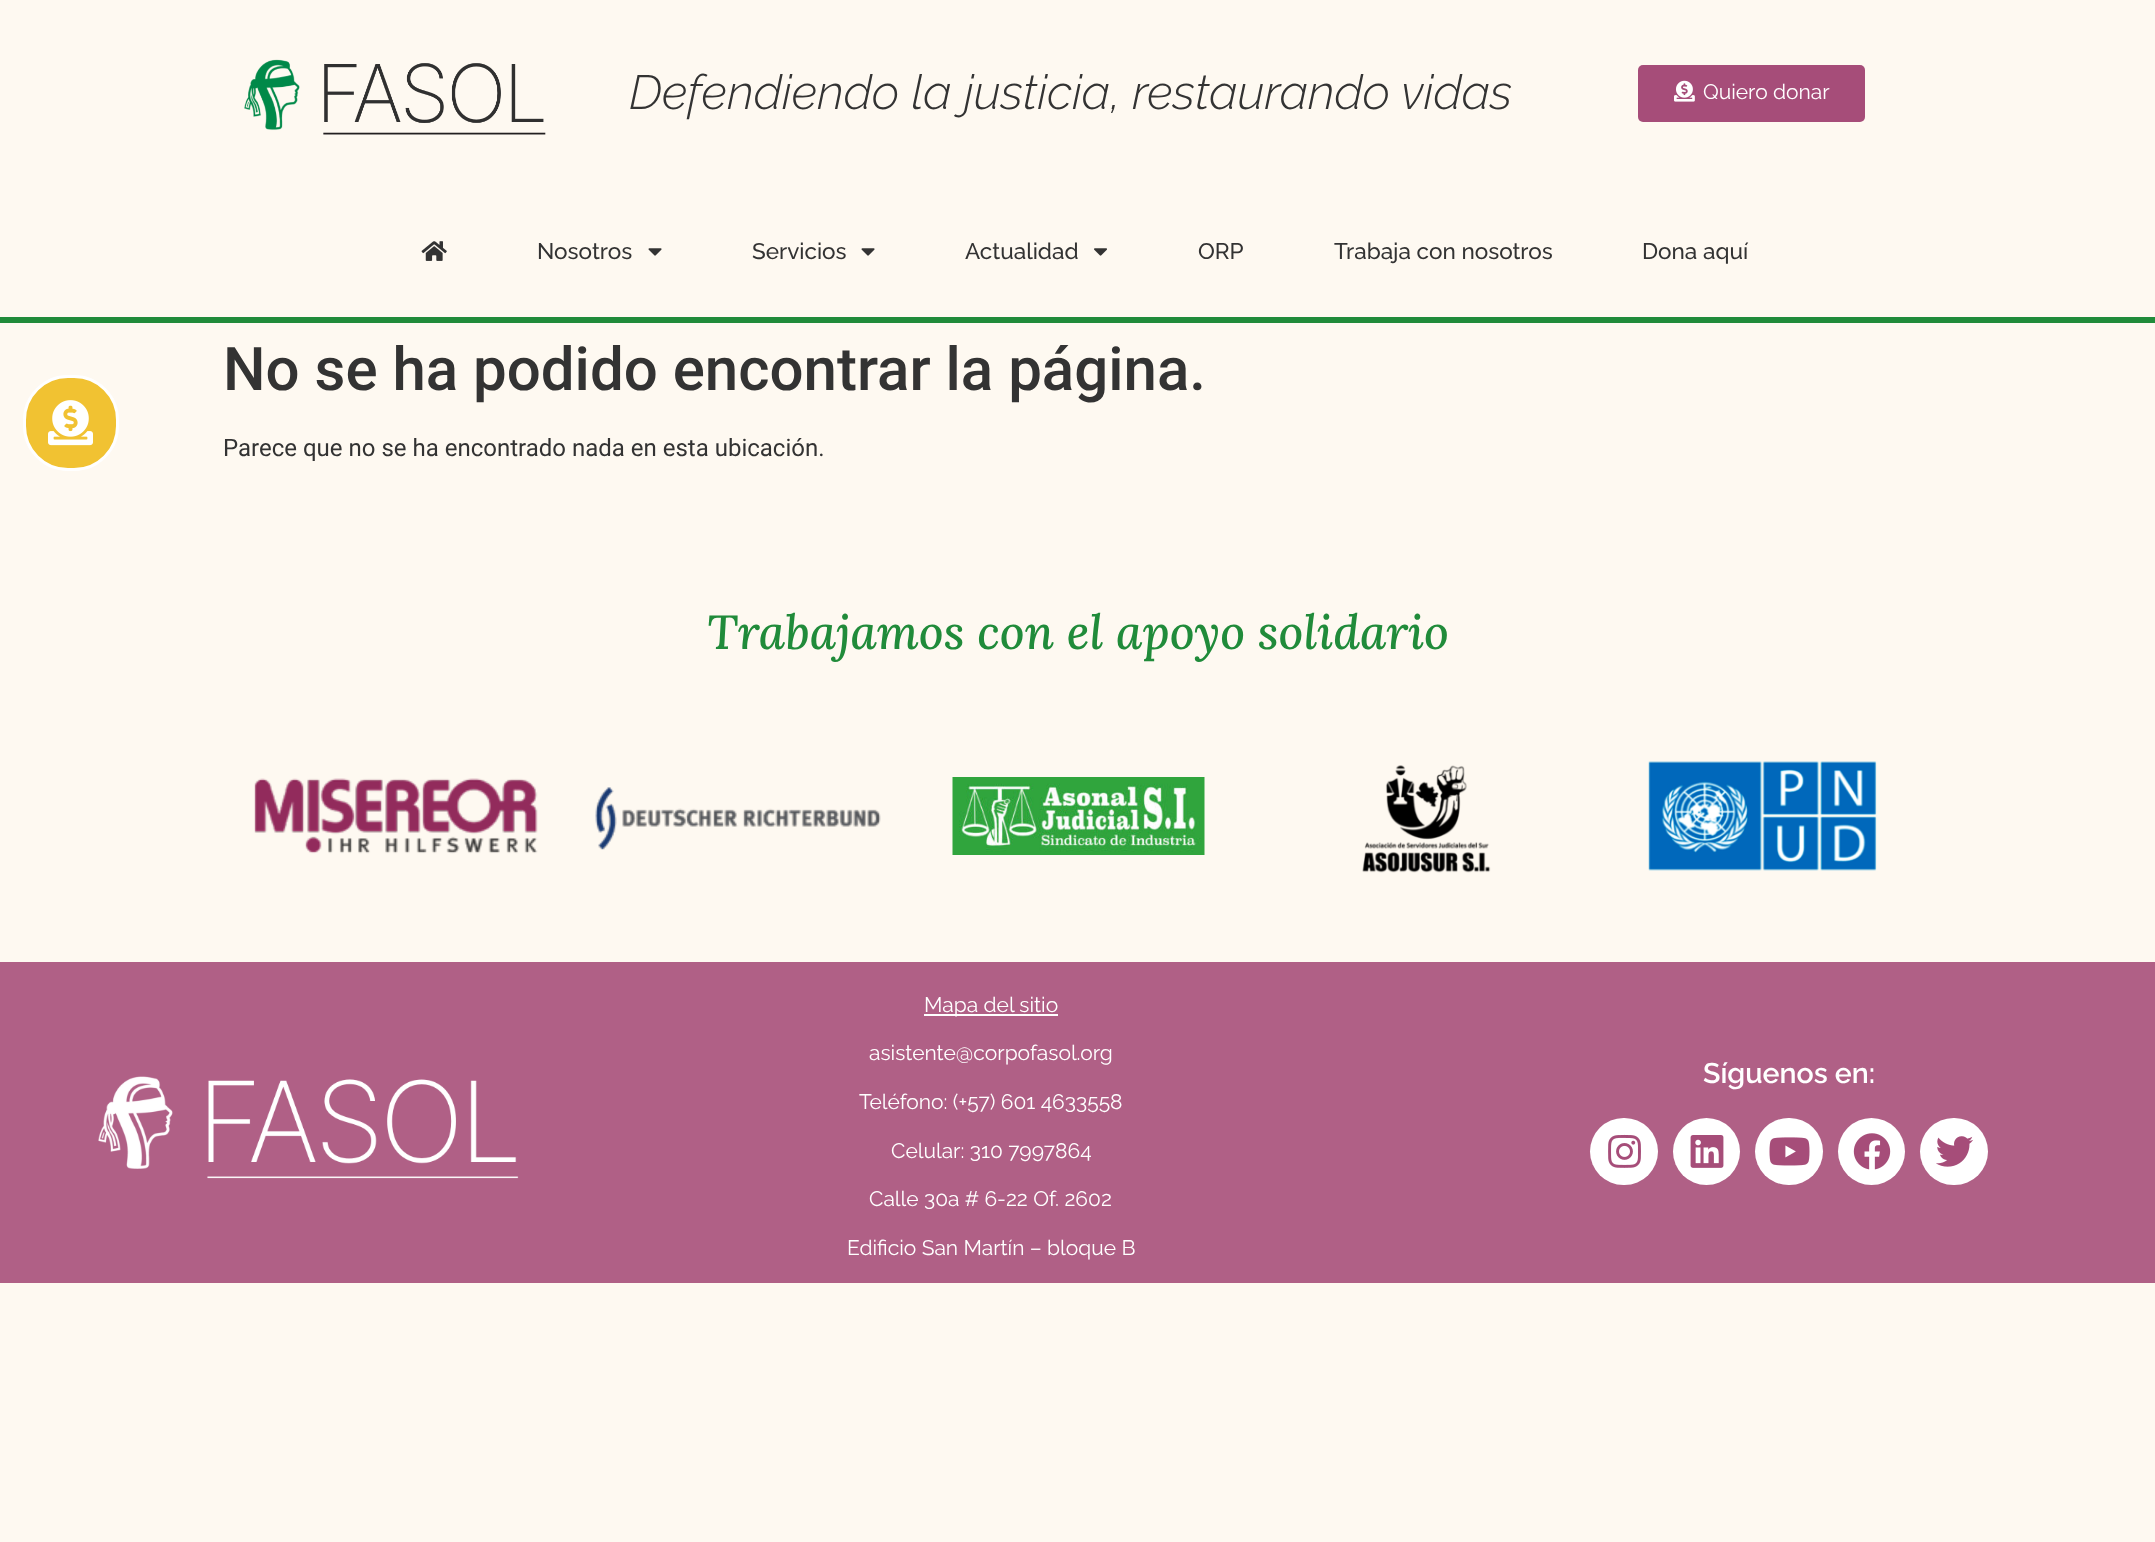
<svg xmlns="http://www.w3.org/2000/svg" width="2155" height="1542">
<rect width="100%" height="100%" fill="#fef9f1"/>
<image x="244" y="59" width="302" height="76" href="media/1.png"/>
<text x="629" y="109" style="font-family:Raleway;font-size:48px;font-weight:300;font-style:italic;fill:#333">Defendiendo la justicia, restaurando vidas</text>
<rect x="1638" y="65" width="227" height="57" rx="5" fill="#a64d79"/>
<image x="1674" y="80" width="21" height="22" href="media/2.png"/>
<text x="1703" y="99" style="font-family:Raleway;font-size:21px;fill:#fff">Quiero donar</text>
<rect y="317" width="2155" height="6" fill="#208b3a"/>
<image x="421" y="241" width="26" height="20" href="media/3.png"/>
<text x="537" y="259" style="font-family:Raleway;font-size:22.5px;font-weight:500;fill:#333">Nosotros</text>
<image x="648" y="248" width="14" height="8" href="media/4.png"/>
<text x="752" y="259" style="font-family:Raleway;font-size:22.5px;font-weight:500;fill:#333">Servicios</text>
<image x="861" y="248" width="14" height="8" href="media/4.png"/>
<text x="965" y="259" style="font-family:Raleway;font-size:22.5px;font-weight:500;fill:#333">Actualidad</text>
<image x="1094" y="248" width="13" height="8" href="media/5.png"/>
<text x="1198" y="259" style="font-family:Raleway;font-size:22.5px;font-weight:500;fill:#333">ORP</text>
<text x="1334" y="259" style="font-family:Raleway;font-size:22.5px;font-weight:500;fill:#333">Trabaja con nosotros</text>
<text x="1642" y="259" style="font-family:Raleway;font-size:22.5px;font-weight:500;fill:#333">Dona aquí</text>
<rect x="24.5" y="376.5" width="93" height="93" rx="43.5" fill="#f1c232" stroke="#fff" stroke-width="3"/>
<image x="48" y="400" width="45" height="46" href="media/6.png"/>
<text x="223" y="390" style="font-family:Roboto;font-size:60px;font-weight:500;fill:#333">No se ha podido encontrar la página.</text>
<text x="223" y="456" style="font-family:Roboto;font-size:24px;fill:#333">Parece que no se ha encontrado nada en esta ubicación.</text>
<text x="707" y="649" style="font-family:Lora;font-size:48px;font-weight:500;font-style:italic;fill:#208b3a">Trabajamos con el apoyo solidario</text>
<image x="254" y="778" width="284" height="76" href="media/7.png"/>
<image x="595" y="787" width="286" height="63" href="media/8.png"/>
<image x="952" y="777" width="253" height="78" href="media/9.png"/>
<image x="1362" y="765" width="129" height="108" href="media/10.png"/>
<image x="1648" y="761" width="229" height="110" href="media/11.png"/>
<rect y="962" width="2155" height="321" fill="#b06086"/>
<image x="98" y="1076" width="421" height="103" href="media/12.png"/>
<rect x="924" y="1014" width="134" height="2" fill="#fff"/>
<text x="924" y="1012" style="font-family:Raleway;font-size:21px;fill:#fff">Mapa del sitio</text>
<text x="869" y="1060" style="font-family:Raleway;font-size:21px;fill:#fff">asistente@corpofasol.org</text>
<text x="859" y="1109" style="font-family:Raleway;font-size:21px;fill:#fff">Teléfono: (+57) 601 4633558</text>
<text x="891" y="1158" style="font-family:Raleway;font-size:21px;fill:#fff">Celular: 310 7997864</text>
<text x="869" y="1206" style="font-family:Raleway;font-size:21px;fill:#fff">Calle 30a # 6-22 Of. 2602</text>
<text x="847" y="1255" style="font-family:Raleway;font-size:21px;fill:#fff">Edificio San Martín – bloque B</text>
<text x="1703" y="1083" style="font-family:Raleway;font-size:28.5px;font-weight:600;fill:#fff">Síguenos en:</text>
<rect x="1590" y="1118" width="68" height="67" rx="33.5" fill="#fff"/>
<image x="1608" y="1134" width="33" height="34" href="media/13.png"/>
<circle cx="1706.5" cy="1151.5" r="33.5" fill="#fff"/>
<image x="1690" y="1135" width="34" height="33" href="media/14.png"/>
<rect x="1755" y="1118" width="68" height="67" rx="33.5" fill="#fff"/>
<image x="1769" y="1137" width="41" height="29" href="media/15.png"/>
<circle cx="1871.5" cy="1151.5" r="33.5" fill="#fff"/>
<image x="1853" y="1133" width="38" height="37" href="media/16.png"/>
<rect x="1920" y="1118" width="68" height="67" rx="33.5" fill="#fff"/>
<image x="1936" y="1136" width="38" height="31" href="media/17.png"/>
</svg>
